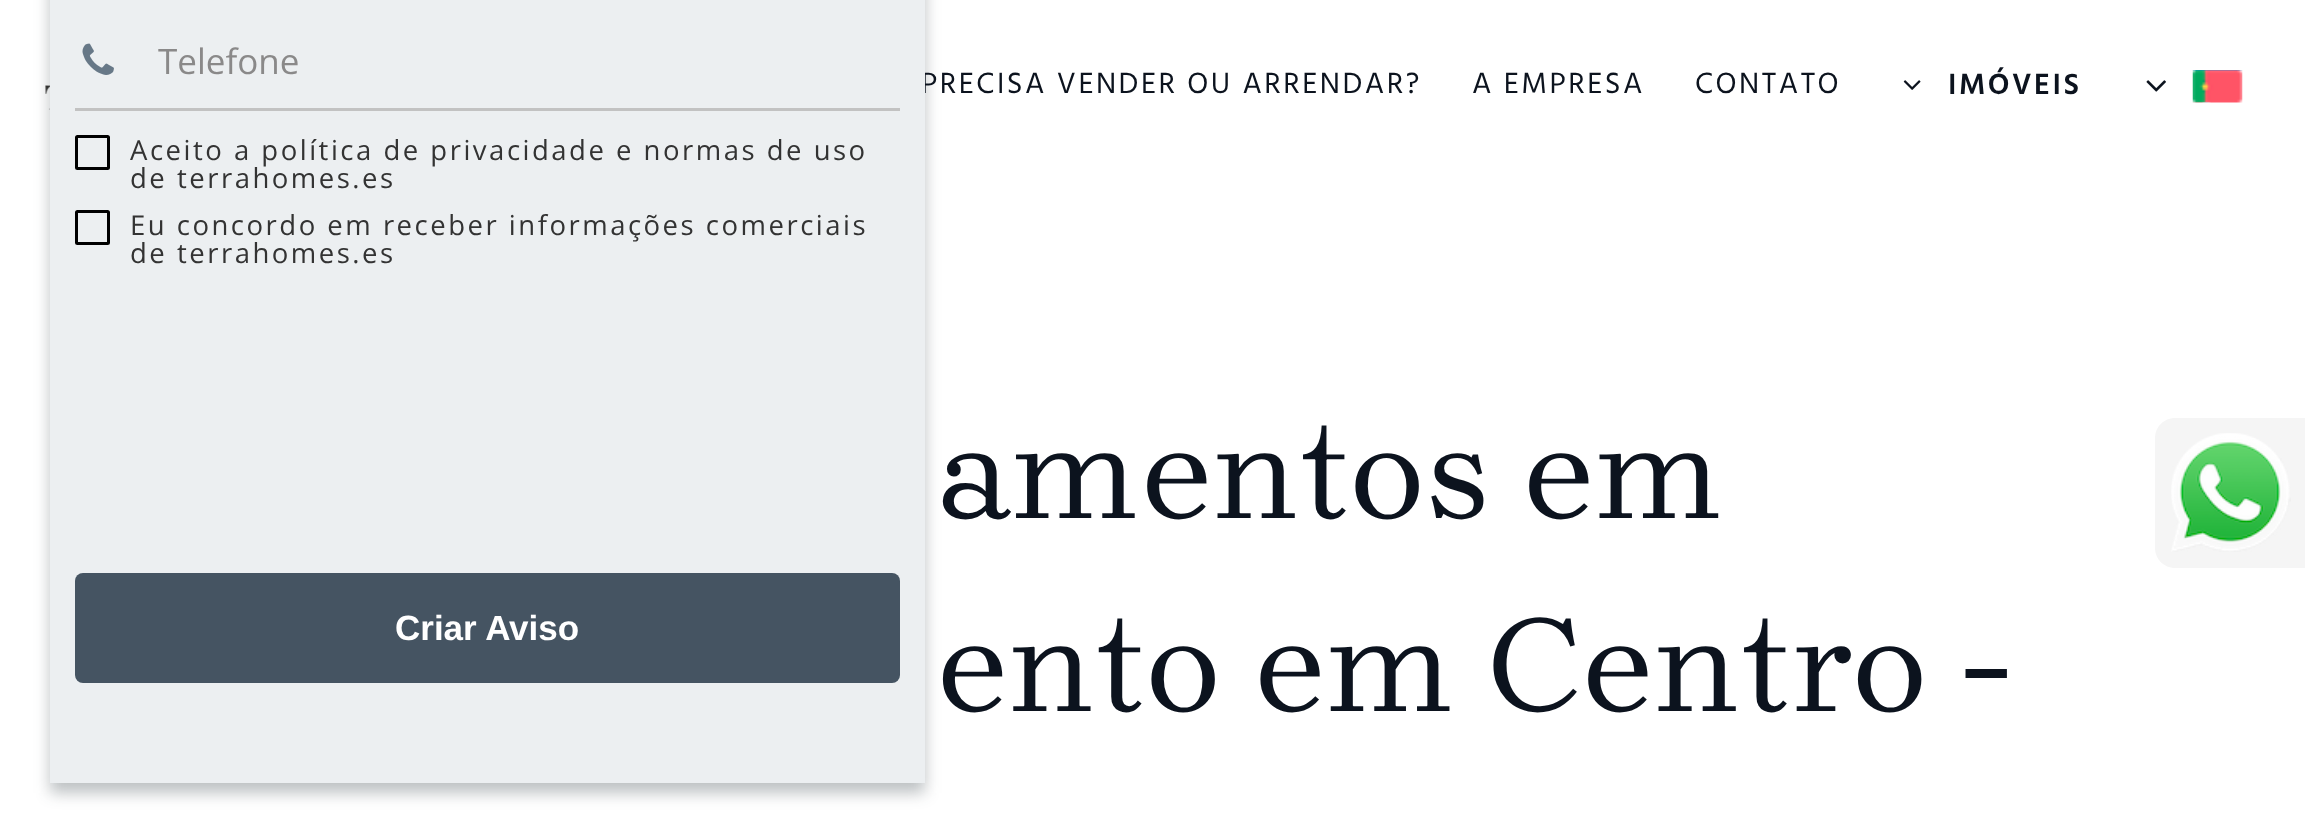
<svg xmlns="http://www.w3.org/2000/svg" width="2305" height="832">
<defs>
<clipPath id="clip1"><rect x="158" y="38" width="717" height="47"/></clipPath>
</defs>
<rect width="100%" height="100%" fill="#fff"/>
<image x="45" y="85" width="5" height="25" href="media/5.png"/>
<rect x="50" y="-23" width="875" height="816" fill="#2332384d" filter="blur(7.5px)"/>
<text x="921" y="93" style="font-family:Hind;font-size:30px;letter-spacing:2.5px;fill:#0c131e">PRECISA VENDER OU ARRENDAR?</text>
<rect x="50" width="875" height="783" fill="#eceff1"/>
<image x="82" y="43" width="32" height="32" href="media/1.png"/>
<rect x="75" y="108" width="825" height="3" fill="#c2c2c2"/>
<g clip-path="url(#clip1)">
<text x="158" y="74" style="font-family:Open Sans;font-size:35px;fill:#8a8989">Telefone</text>
</g>
<rect x="76.5" y="136.5" width="32" height="32" rx="1" fill="none" stroke="#000" stroke-width="3"/>
<text x="130" y="160" style="font-family:Open Sans;font-size:27.5px;letter-spacing:2.5px;fill:#333">Aceito a política de privacidade e normas de uso</text>
<text x="130" y="188" style="font-family:Open Sans;font-size:27.5px;letter-spacing:2.5px;fill:#333">de terrahomes.es</text>
<rect x="76.5" y="211.5" width="32" height="32" rx="1" fill="none" stroke="#000" stroke-width="3"/>
<text x="130" y="235" style="font-family:Open Sans;font-size:27.5px;letter-spacing:2.5px;fill:#333">Eu concordo em receber informações comerciais</text>
<text x="130" y="263" style="font-family:Open Sans;font-size:27.5px;letter-spacing:2.5px;fill:#333">de terrahomes.es</text>
<rect x="75" y="573" width="825" height="110" rx="8" fill="#455462"/>
<text x="395" y="640" style="font-family:Liberation Sans;font-size:35px;font-weight:bold;fill:#fff">Criar Aviso</text>
<text x="938" y="518" style="font-family:'Brygada 1918';font-size:138px;fill:#0c131e">amentos em</text>
<text x="936" y="711" style="font-family:'Brygada 1918';font-size:138px;fill:#0c131e">ento em Centro -</text>
<text x="1472" y="93" style="font-family:Hind;font-size:30px;letter-spacing:2.5px;fill:#0c131e">A EMPRESA</text>
<text x="1695" y="93" style="font-family:Hind;font-size:30px;letter-spacing:2.5px;fill:#0c131e">CONTATO</text>
<image x="1903" y="80" width="18" height="10" href="media/2.png"/>
<text x="1948" y="94" style="font-family:Hind;font-size:30px;font-weight:600;letter-spacing:2.5px;fill:#0c131e">IMÓVEIS</text>
<image x="2146" y="80" width="20" height="12" href="media/3.png"/>
<image x="2192" y="70" width="51" height="33" href="media/4.png"/>
<path d="M2175 418h130v150h-130c-11 0-20-9-20-20v-110c0-11 9-20 20-20z" fill="#f5f5f5"/>
<image x="2171" y="433" width="120" height="119" href="media/6.png"/>
</svg>
